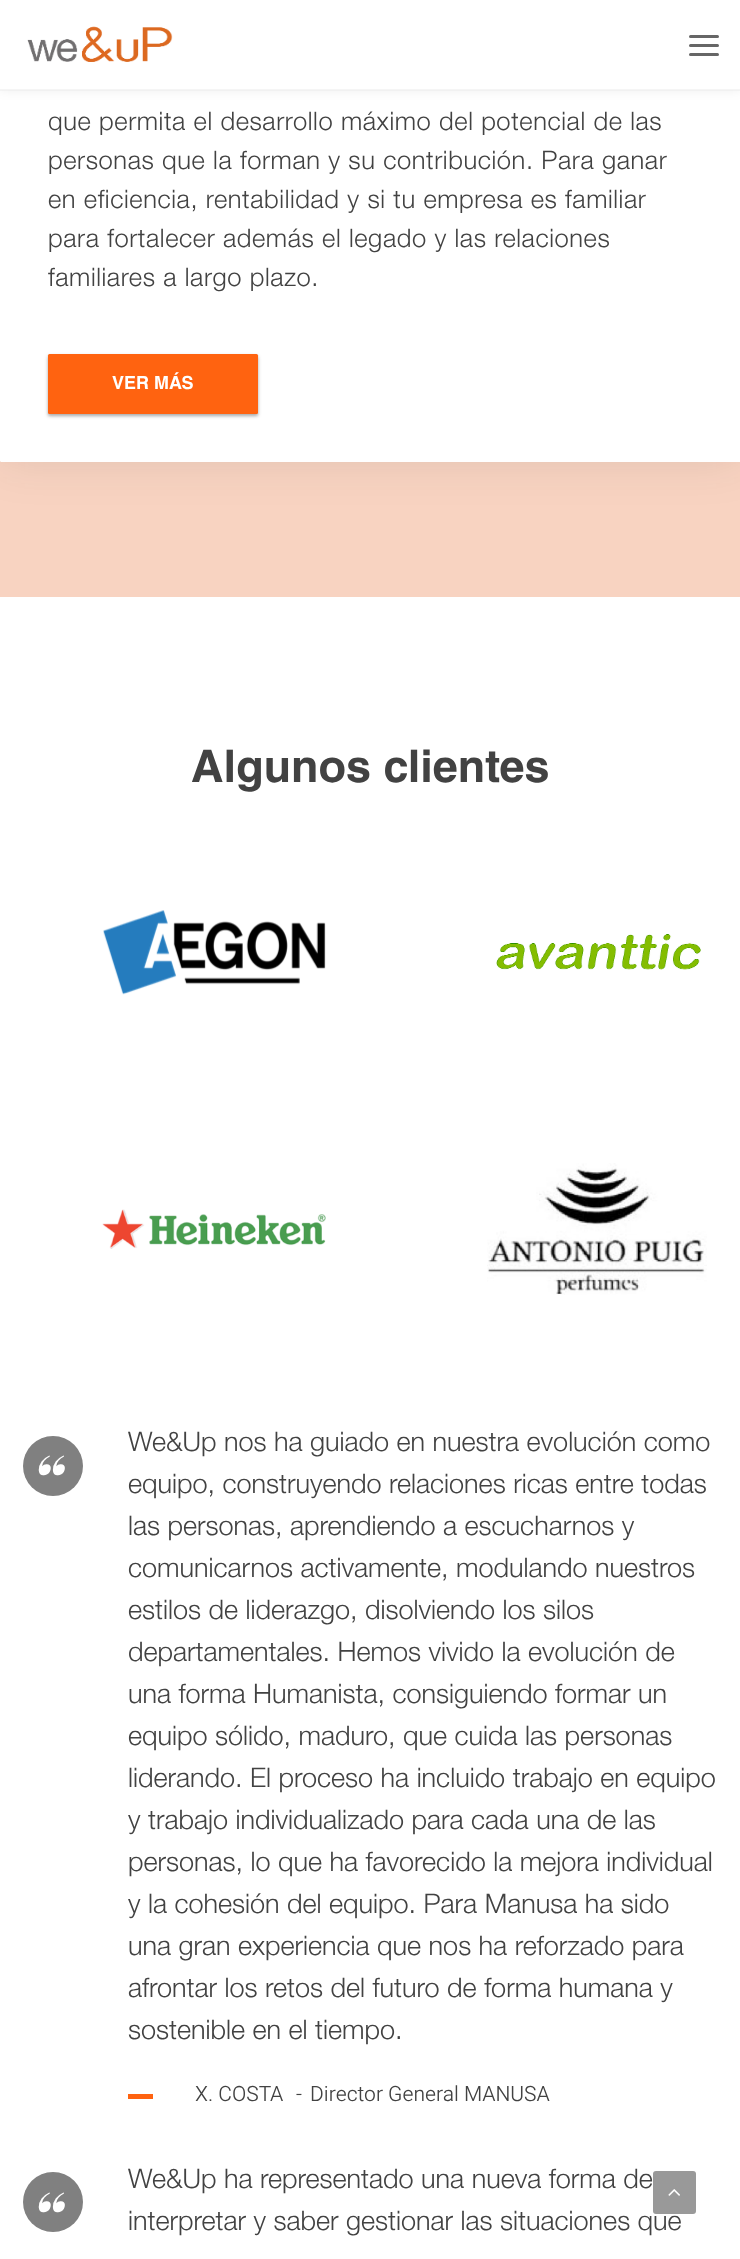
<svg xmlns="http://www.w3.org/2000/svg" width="740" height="2259">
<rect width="100%" height="100%" fill="#fff"/>
<rect y="460" width="740" height="137" fill="#f8d3c1"/>
<rect y="-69" width="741" height="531" rx="1.5" fill="#1e2a291a" filter="blur(22.5px)"/>
<rect y="-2" width="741" height="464" rx="1.5" fill="#fff"/>
<rect width="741" height="90" fill="#00000012" filter="blur(6px)"/>
<rect width="740" height="90" fill="#fff"/>
<rect y="89" width="740" height="2" fill="#ebebeb80"/>
<image x="27" y="26" width="146" height="36" href="media/1.png"/>
<rect x="689" y="44" width="30" height="3" rx="1.5" fill="#666"/>
<rect x="689" y="35" width="30" height="3" rx="1.5" fill="#666"/>
<rect x="689" y="53" width="30" height="3" rx="1.5" fill="#666"/>
<text x="48" y="130" style="font-family:Helvetica Neue;font-size:25.5px;font-weight:300;letter-spacing:0.6px;fill:#424242">que permita el desarrollo máximo del potencial de las</text>
<text x="48" y="169" style="font-family:Helvetica Neue;font-size:25.5px;font-weight:300;letter-spacing:0.6px;fill:#424242">personas que la forman y su contribución. Para ganar</text>
<text x="48" y="208" style="font-family:Helvetica Neue;font-size:25.5px;font-weight:300;letter-spacing:0.6px;fill:#424242">en eficiencia, rentabilidad y si tu empresa es familiar</text>
<text x="48" y="247" style="font-family:Helvetica Neue;font-size:25.5px;font-weight:300;letter-spacing:0.6px;fill:#424242">para fortalecer además el legado y las relaciones</text>
<text x="48" y="286" style="font-family:Helvetica Neue;font-size:25.5px;font-weight:300;letter-spacing:0.6px;fill:#424242">familiares a largo plazo.</text>
<rect x="48" y="356" width="210" height="60" rx="1.5" fill="#0000003d" filter="blur(1.5px)"/>
<rect x="48" y="356" width="210" height="60" rx="1.5" fill="#0000001f" filter="blur(2px)"/>
<rect x="48" y="354" width="210" height="60" rx="1.5" fill="#ff6310"/>
<text x="112" y="389" style="font-family:Helvetica;font-size:18px;font-weight:bold;fill:#fff">VER MÁS</text>
<text x="191" y="782" style="font-family:Helvetica;font-size:45px;font-weight:bold;fill:#424242">Algunos clientes</text>
<image x="103" y="910" width="223" height="85" href="media/2.png"/>
<image x="496" y="934" width="205" height="36" href="media/3.png"/>
<image x="102" y="1209" width="224" height="40" href="media/4.png"/>
<image x="487" y="1163" width="220" height="132" href="media/5.png"/>
<circle cx="53" cy="1466" r="30" fill="#808080"/>
<text x="30" y="1508" style="font-family:Playfair Display;font-size:72px;font-weight:bold;font-style:italic;letter-spacing:0.6px;fill:#fff">“</text>
<text x="128" y="1451" style="font-family:Helvetica Neue;font-size:27px;font-weight:300;fill:#424242">We&amp;Up nos ha guiado en nuestra evolución como</text>
<text x="128" y="1493" style="font-family:Helvetica Neue;font-size:27px;font-weight:300;fill:#424242">equipo, construyendo relaciones ricas entre todas</text>
<text x="128" y="1535" style="font-family:Helvetica Neue;font-size:27px;font-weight:300;fill:#424242">las personas, aprendiendo a escucharnos y</text>
<text x="128" y="1577" style="font-family:Helvetica Neue;font-size:27px;font-weight:300;fill:#424242">comunicarnos activamente, modulando nuestros</text>
<text x="128" y="1619" style="font-family:Helvetica Neue;font-size:27px;font-weight:300;fill:#424242">estilos de liderazgo, disolviendo los silos</text>
<text x="128" y="1661" style="font-family:Helvetica Neue;font-size:27px;font-weight:300;fill:#424242">departamentales. Hemos vivido la evolución de</text>
<text x="128" y="1703" style="font-family:Helvetica Neue;font-size:27px;font-weight:300;fill:#424242">una forma Humanista, consiguiendo formar un</text>
<text x="128" y="1745" style="font-family:Helvetica Neue;font-size:27px;font-weight:300;fill:#424242">equipo sólido, maduro, que cuida las personas</text>
<text x="128" y="1787" style="font-family:Helvetica Neue;font-size:27px;font-weight:300;fill:#424242">liderando. El proceso ha incluido trabajo en equipo</text>
<text x="128" y="1829" style="font-family:Helvetica Neue;font-size:27px;font-weight:300;fill:#424242">y trabajo individualizado para cada una de las</text>
<text x="128" y="1871" style="font-family:Helvetica Neue;font-size:27px;font-weight:300;fill:#424242">personas, lo que ha favorecido la mejora individual</text>
<text x="128" y="1913" style="font-family:Helvetica Neue;font-size:27px;font-weight:300;fill:#424242">y la cohesión del equipo. Para Manusa ha sido</text>
<text x="128" y="1955" style="font-family:Helvetica Neue;font-size:27px;font-weight:300;fill:#424242">una gran experiencia que nos ha reforzado para</text>
<text x="128" y="1997" style="font-family:Helvetica Neue;font-size:27px;font-weight:300;fill:#424242">afrontar los retos del futuro de forma humana y</text>
<text x="128" y="2039" style="font-family:Helvetica Neue;font-size:27px;font-weight:300;fill:#424242">sostenible en el tiempo.</text>
<rect x="128" y="2094" width="25" height="5" fill="#ff6310"/>
<text x="195" y="2101" style="font-family:Heebo;font-size:21px;font-weight:300;fill:#424242">X. COSTA</text>
<text x="296" y="2101" style="font-family:Heebo;font-size:21px;font-weight:300;fill:#424242">-</text>
<text x="310" y="2101" style="font-family:Heebo;font-size:21px;font-weight:300;fill:#424242">Director General MANUSA</text>
<circle cx="53" cy="2202" r="30" fill="#808080"/>
<text x="30" y="2245" style="font-family:Playfair Display;font-size:72px;font-weight:bold;font-style:italic;letter-spacing:0.6px;fill:#fff">“</text>
<text x="128" y="2188" style="font-family:Helvetica Neue;font-size:27px;font-weight:300;fill:#424242">We&amp;Up ha representado una nueva forma de</text>
<text x="128" y="2230" style="font-family:Helvetica Neue;font-size:27px;font-weight:300;fill:#424242">interpretar y saber gestionar las situaciones que</text>
<rect x="653" y="2171" width="43" height="43" rx="3" fill="#999"/>
<image x="668" y="2189" width="12" height="7" href="media/6.png"/>
</svg>
